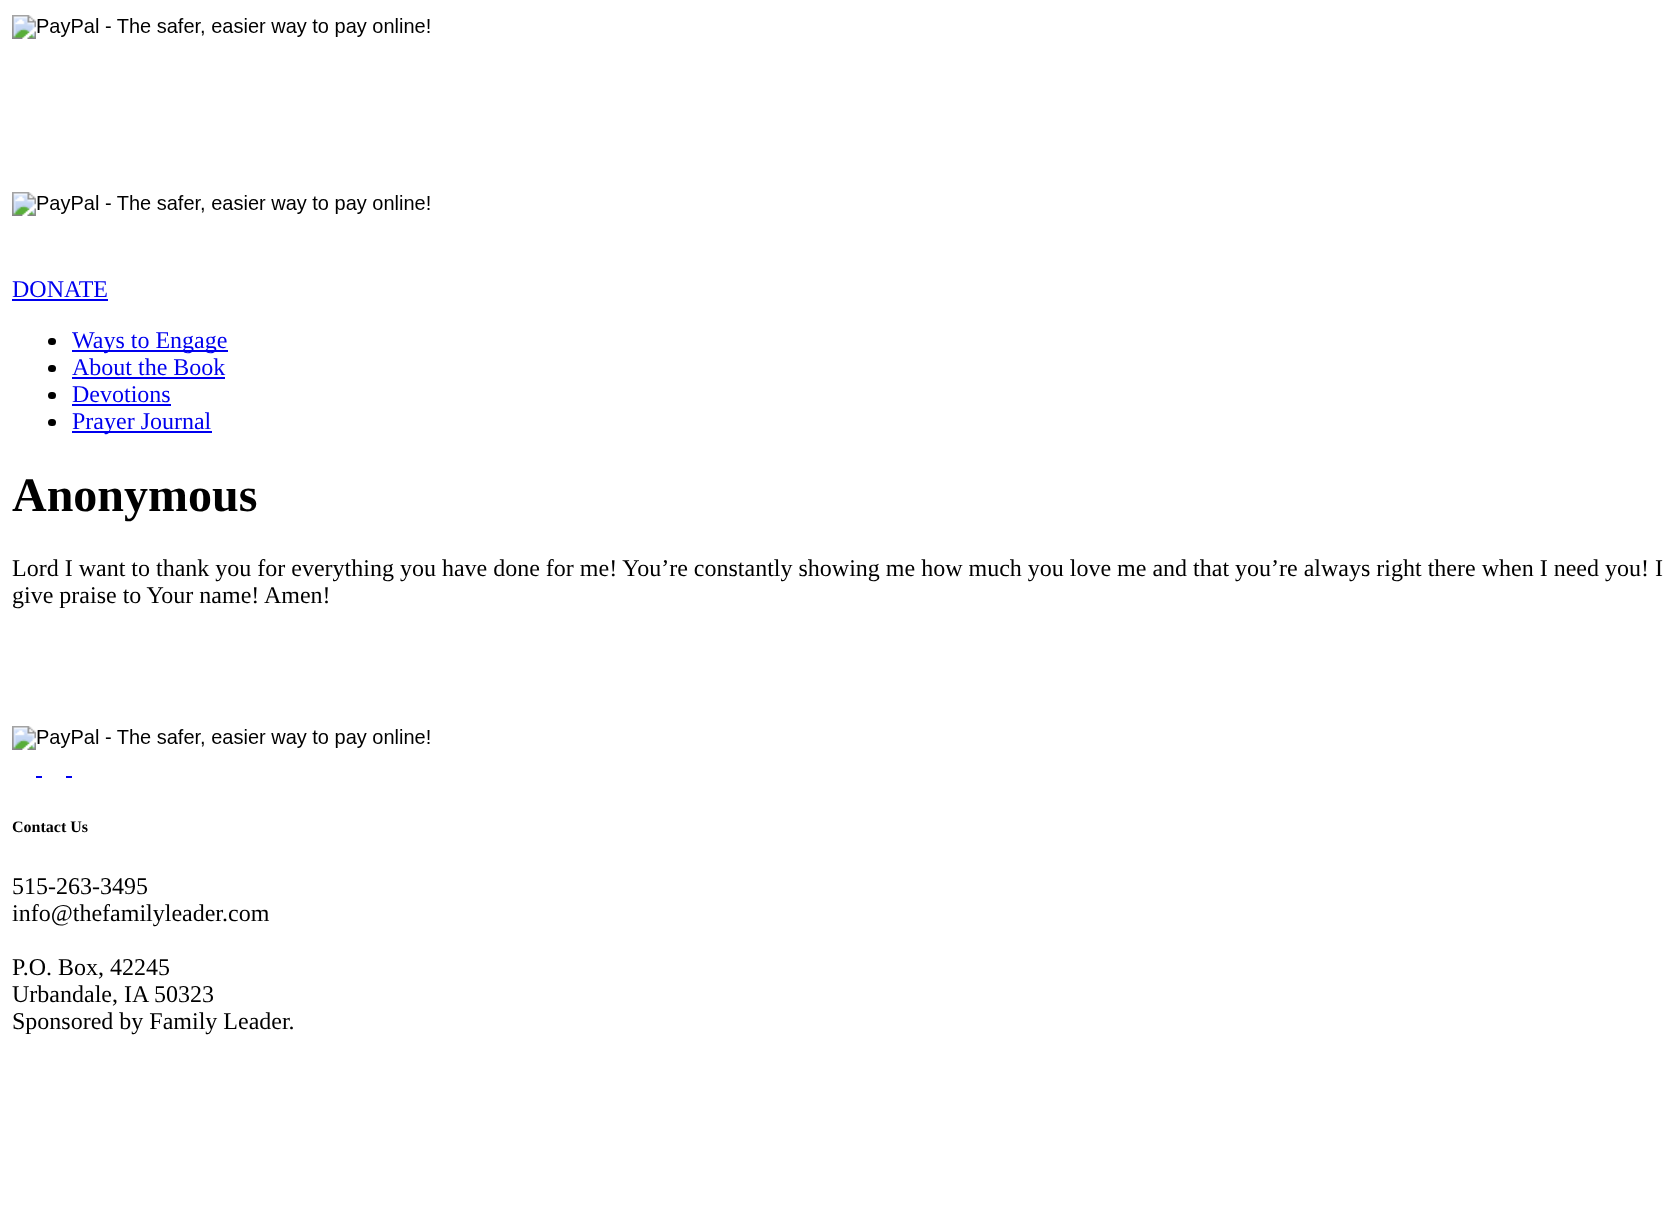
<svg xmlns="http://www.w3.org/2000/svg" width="1675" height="1214">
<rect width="100%" height="100%" fill="#fff"/>
<image x="12" y="15" width="418" height="24" href="media/1.png"/>
<image x="12" y="192" width="418" height="24" href="media/1.png"/>
<text x="12" y="297" style="font-family:Liberation Serif;font-size:24px;fill:#00e">DONATE</text>
<rect x="12" y="299" width="96" height="2" fill="#00e"/>
<rect x="48" y="338" width="8" height="7" rx="3.5" fill="#000"/>
<rect x="72" y="350" width="156" height="2" fill="#00e"/>
<text x="72" y="348" style="font-family:Liberation Serif;font-size:24px;fill:#00e">Ways to Engage</text>
<rect x="48" y="365" width="8" height="7" rx="3.5" fill="#000"/>
<text x="72" y="375" style="font-family:Liberation Serif;font-size:24px;fill:#00e">About the Book</text>
<rect x="72" y="377" width="153" height="2" fill="#00e"/>
<rect x="48" y="392" width="8" height="7" rx="3.5" fill="#000"/>
<text x="72" y="402" style="font-family:Liberation Serif;font-size:24px;fill:#00e">Devotions</text>
<rect x="72" y="404" width="99" height="2" fill="#00e"/>
<rect x="48" y="419" width="8" height="7" rx="3.5" fill="#000"/>
<rect x="72" y="431" width="140" height="2" fill="#00e"/>
<text x="72" y="429" style="font-family:Liberation Serif;font-size:24px;fill:#00e">Prayer Journal</text>
<text x="12" y="511" style="font-family:Liberation Serif;font-size:48px;font-weight:bold;fill:#000">Anonymous</text>
<text x="12" y="576" style="font-family:Liberation Serif;font-size:24px;fill:#000">Lord I want to thank you for everything you have done for me! You’re constantly showing me how much you love me and that you’re always right there when I need you! I</text>
<text x="12" y="603" style="font-family:Liberation Serif;font-size:24px;fill:#000">give praise to Your name! Amen!</text>
<image x="12" y="726" width="418" height="24" href="media/1.png"/>
<rect x="36" y="776" width="6" height="2" fill="#00e"/>
<rect x="66" y="776" width="6" height="2" fill="#00e"/>
<text x="12" y="832" style="font-family:Liberation Serif;font-size:16px;font-weight:bold;fill:#000">Contact Us</text>
<text x="12" y="894" style="font-family:Liberation Serif;font-size:24px;fill:#000">515-263-3495</text>
<text x="12" y="921" style="font-family:Liberation Serif;font-size:24px;fill:#000">info@thefamilyleader.com</text>
<text x="12" y="975" style="font-family:Liberation Serif;font-size:24px;fill:#000">P.O. Box, 42245</text>
<text x="12" y="1002" style="font-family:Liberation Serif;font-size:24px;fill:#000">Urbandale, IA 50323</text>
<text x="12" y="1029" style="font-family:Liberation Serif;font-size:24px;fill:#000">Sponsored by Family Leader.</text>
</svg>
